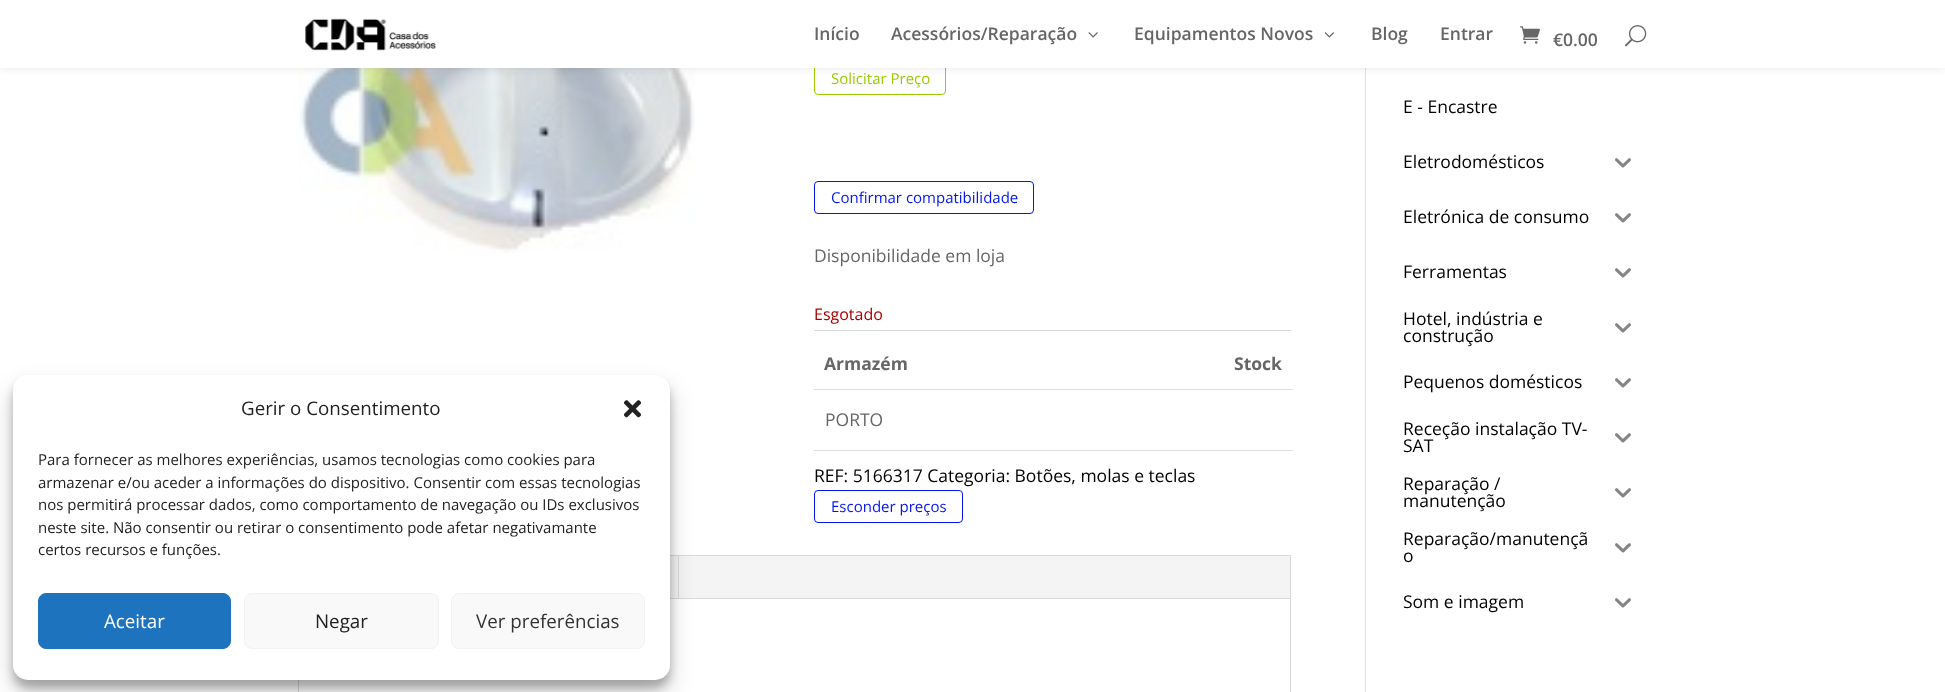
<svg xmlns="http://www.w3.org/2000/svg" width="1945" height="692">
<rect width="100%" height="100%" fill="#fff"/>
<rect x="298.5" y="555.5" width="992" height="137" fill="none" stroke="#d9d9d9"/>
<rect x="670" y="556" width="620" height="42" fill="#f4f4f4"/>
<rect x="678" y="556" width="1" height="43" fill="#d9d9d9"/>
<rect x="670" y="598" width="620" height="1" fill="#d9d9d9"/>
<rect x="13" y="383" width="657" height="305" rx="15" fill="#0000003b" filter="blur(4px)"/>
<rect x="13" y="388" width="657" height="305" rx="15" fill="#00000030" filter="blur(12.5px)"/>
<rect x="13" y="375" width="657" height="305" rx="15" fill="#fff"/>
<text x="241" y="415" style="font-family:Open Sans;font-size:18.75px;fill:#222">Gerir o Consentimento</text>
<image x="623" y="400" width="19" height="18" href="media/1.png"/>
<text x="38" y="465" style="font-family:Open Sans;font-size:15px;fill:#222">Para fornecer as melhores experiências, usamos tecnologias como cookies para</text>
<text x="38" y="488" style="font-family:Open Sans;font-size:15px;fill:#222">armazenar e/ou aceder a informações do dispositivo. Consentir com essas tecnologias</text>
<text x="38" y="510" style="font-family:Open Sans;font-size:15px;fill:#222">nos permitirá processar dados, como comportamento de navegação ou IDs exclusivos</text>
<text x="38" y="533" style="font-family:Open Sans;font-size:15px;fill:#222">neste site. Não consentir ou retirar o consentimento pode afetar negativamante</text>
<text x="38" y="555" style="font-family:Open Sans;font-size:15px;fill:#222">certos recursos e funções.</text>
<rect x="38.5" y="593.5" width="192" height="55" rx="7.5" fill="#1e73be" stroke="#1e73be"/>
<text x="104" y="628" style="font-family:Open Sans;font-size:18.75px;fill:#fff">Aceitar</text>
<rect x="244.5" y="593.5" width="194" height="55" rx="7.5" fill="#f9f9f9" stroke="#f2f2f2"/>
<text x="315" y="628" style="font-family:Open Sans;font-size:18.75px;fill:#222">Negar</text>
<rect x="451.5" y="593.5" width="193" height="55" rx="7.5" fill="#f9f9f9" stroke="#f2f2f2"/>
<text x="476" y="628" style="font-family:Open Sans;font-size:18.75px;fill:#333">Ver preferências</text>
<rect x="1365" y="68" width="1" height="624" fill="#e2e2e2"/>
<image x="298" y="68" width="397" height="185" href="media/7.png"/>
<rect x="814.5" y="61.5" width="131" height="33" rx="3.5" fill="none" stroke="#99cc01"/>
<rect width="1945" height="68" fill="#0000001a" filter="blur(4.5px)"/>
<rect width="1945" height="68" fill="#fff"/>
<image x="305" y="18" width="132" height="33" href="media/2.png"/>
<text x="814" y="40" style="font-family:Open Sans;font-size:17.5px;font-weight:600;fill:#666">Início</text>
<text x="891" y="40" style="font-family:Open Sans;font-size:17.5px;font-weight:600;fill:#666">Acessórios/Reparação</text>
<image x="1088" y="32" width="10" height="6" href="media/3.png"/>
<text x="1134" y="40" style="font-family:Open Sans;font-size:17.5px;font-weight:600;fill:#666">Equipamentos Novos</text>
<image x="1324" y="32" width="10" height="6" href="media/4.png"/>
<text x="1371" y="40" style="font-family:Open Sans;font-size:17.5px;font-weight:600;fill:#666">Blog</text>
<text x="1440" y="40" style="font-family:Open Sans;font-size:17.5px;font-weight:600;fill:#666">Entrar</text>
<image x="1520" y="26" width="20" height="18" href="media/5.png"/>
<text x="1553" y="46" style="font-family:Open Sans;font-size:17.5px;font-weight:600;fill:#666">€0.00</text>
<image x="1625" y="25" width="22" height="22" href="media/6.png"/>
<text x="831" y="84" style="font-family:Open Sans;font-size:15px;fill:#99cc01">Solicitar Preço</text>
<rect x="814.5" y="181.5" width="219" height="32" rx="3.5" fill="none" stroke="#0415f1"/>
<text x="831" y="203" style="font-family:Open Sans;font-size:15px;fill:#0415f1">Confirmar compatibilidade</text>
<text x="814" y="262" style="font-family:Open Sans;font-size:17.5px;fill:#666">Disponibilidade em loja</text>
<text x="814" y="320" style="font-family:Open Sans;font-size:16px;fill:#a00">Esgotado</text>
<rect x="814" y="330" width="477" height="1" fill="#dadada"/>
<text x="824" y="370" style="font-family:Open Sans;font-size:17.5px;font-weight:bold;fill:#666">Armazém</text>
<rect x="814" y="389" width="479" height="1" fill="#ddd"/>
<text x="1234" y="370" style="font-family:Open Sans;font-size:17.5px;font-weight:bold;fill:#666">Stock</text>
<rect x="814" y="450" width="479" height="1" fill="#ddd"/>
<text x="825" y="426" style="font-family:Open Sans;font-size:17.5px;fill:#666">PORTO</text>
<text x="814" y="482" style="font-family:Open Sans;font-size:17.5px;fill:#000">REF: 5166317 Categoria: Botões, molas e teclas</text>
<rect x="814.5" y="490.5" width="148" height="32" rx="3.5" fill="none" stroke="#0415f1"/>
<text x="831" y="512" style="font-family:Open Sans;font-size:15px;fill:#0415f1">Esconder preços</text>
<text x="1403" y="113" style="font-family:Open Sans;font-size:17.5px;fill:#000">E - Encastre</text>
<text x="1403" y="168" style="font-family:Open Sans;font-size:17.5px;fill:#000">Eletrodomésticos</text>
<image x="1615" y="158" width="16" height="10" href="media/8.png"/>
<text x="1403" y="223" style="font-family:Open Sans;font-size:17.5px;fill:#000">Eletrónica de consumo</text>
<image x="1615" y="213" width="16" height="10" href="media/8.png"/>
<text x="1403" y="278" style="font-family:Open Sans;font-size:17.5px;fill:#000">Ferramentas</text>
<image x="1615" y="268" width="16" height="10" href="media/8.png"/>
<text x="1403" y="325" style="font-family:Open Sans;font-size:17.5px;fill:#000">Hotel, indústria e</text>
<text x="1403" y="342" style="font-family:Open Sans;font-size:17.5px;fill:#000">construção</text>
<image x="1615" y="323" width="16" height="10" href="media/8.png"/>
<text x="1403" y="388" style="font-family:Open Sans;font-size:17.5px;fill:#000">Pequenos domésticos</text>
<image x="1615" y="378" width="16" height="10" href="media/8.png"/>
<text x="1403" y="435" style="font-family:Open Sans;font-size:17.5px;fill:#000">Receção instalação TV-</text>
<text x="1403" y="452" style="font-family:Open Sans;font-size:17.5px;fill:#000">SAT</text>
<image x="1615" y="433" width="16" height="10" href="media/8.png"/>
<text x="1403" y="490" style="font-family:Open Sans;font-size:17.5px;fill:#000">Reparação /</text>
<text x="1403" y="507" style="font-family:Open Sans;font-size:17.5px;fill:#000">manutenção</text>
<image x="1615" y="488" width="16" height="10" href="media/8.png"/>
<text x="1403" y="545" style="font-family:Open Sans;font-size:17.5px;fill:#000">Reparação/manutençã</text>
<text x="1403" y="562" style="font-family:Open Sans;font-size:17.5px;fill:#000">o</text>
<image x="1615" y="543" width="16" height="10" href="media/8.png"/>
<text x="1403" y="608" style="font-family:Open Sans;font-size:17.5px;fill:#000">Som e imagem</text>
<image x="1615" y="598" width="16" height="10" href="media/8.png"/>
</svg>
